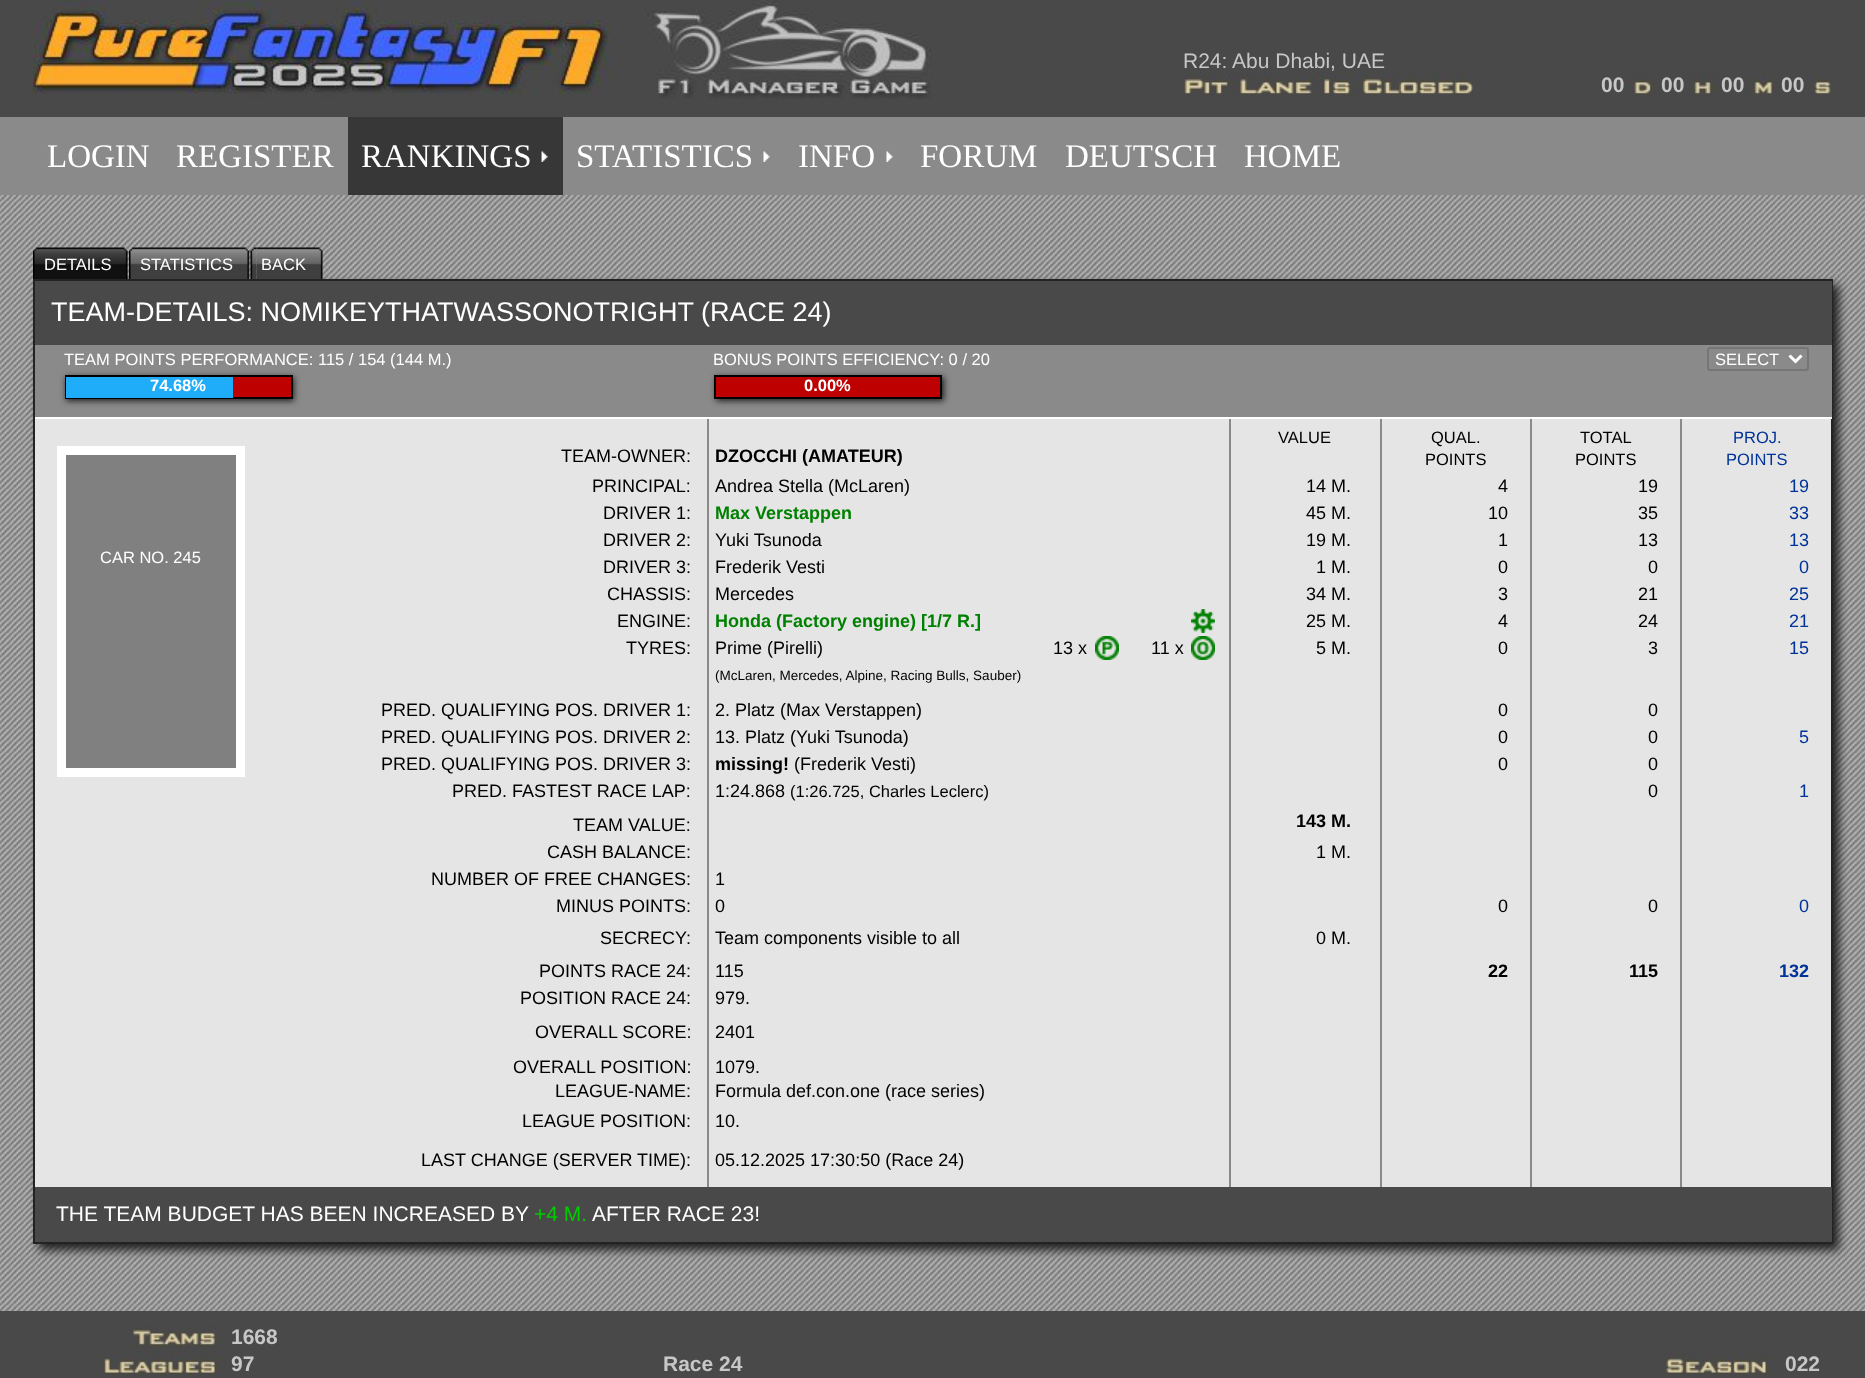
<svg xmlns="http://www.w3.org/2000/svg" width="1865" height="1378">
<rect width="100%" height="100%" fill="#fff"/>
<image x="0" y="195" width="1865" height="1116" href="media/1.png"/>
<rect width="1865" height="117" fill="#494949"/>
<image x="33" y="0" width="900" height="99" href="media/2.png"/>
<text x="1183" y="68" style="font-family:Liberation Sans;font-size:21px;fill:#c7c7c7">R24: Abu Dhabi, UAE</text>
<image x="1183" y="72" width="291" height="24" href="media/3.png"/>
<image x="1625" y="72" width="31" height="24" href="media/4.png"/>
<text x="1601" y="92" style="font-family:Liberation Sans;font-size:21px;font-weight:bold;fill:#c7c7c7">00</text>
<image x="1684" y="72" width="36" height="24" href="media/5.png"/>
<text x="1661" y="92" style="font-family:Liberation Sans;font-size:21px;font-weight:bold;fill:#c7c7c7">00</text>
<image x="1745" y="72" width="35" height="24" href="media/6.png"/>
<text x="1721" y="92" style="font-family:Liberation Sans;font-size:21px;font-weight:bold;fill:#c7c7c7">00</text>
<image x="1805" y="73" width="28" height="23" href="media/7.png"/>
<text x="1781" y="92" style="font-family:Liberation Sans;font-size:21px;font-weight:bold;fill:#c7c7c7">00</text>
<rect y="117" width="1865" height="78" fill="#8a8a8a"/>
<text x="47" y="167" style="font-family:Liberation Serif;font-size:33px;fill:#fff">LOGIN</text>
<text x="176" y="167" style="font-family:Liberation Serif;font-size:33px;fill:#fff">REGISTER</text>
<rect x="348" y="117" width="215" height="78" fill="#373737"/>
<image x="541" y="151" width="7" height="11" href="media/8.png"/>
<text x="361" y="167" style="font-family:Liberation Serif;font-size:33px;fill:#fff">RANKINGS</text>
<image x="763" y="151" width="7" height="11" href="media/9.png"/>
<text x="576" y="167" style="font-family:Liberation Serif;font-size:33px;fill:#fff">STATISTICS</text>
<image x="886" y="151" width="7" height="11" href="media/9.png"/>
<text x="798" y="167" style="font-family:Liberation Serif;font-size:33px;fill:#fff">INFO</text>
<text x="920" y="167" style="font-family:Liberation Serif;font-size:33px;fill:#fff">FORUM</text>
<text x="1065" y="167" style="font-family:Liberation Serif;font-size:33px;fill:#fff">DEUTSCH</text>
<text x="1244" y="167" style="font-family:Liberation Serif;font-size:33px;fill:#fff">HOME</text>
<rect x="39" y="285" width="1800" height="965" fill="#212121" filter="blur(5px)"/>
<image x="33" y="247" width="6" height="32" href="media/10.png"/>
<image x="39" y="247" width="89" height="32" href="media/11.png"/>
<text x="44" y="270" style="font-family:Liberation Sans;font-size:16.5px;fill:#fff">DETAILS</text>
<image x="129" y="247" width="6" height="32" href="media/12.png"/>
<image x="135" y="247" width="115" height="32" href="media/13.png"/>
<text x="140" y="270" style="font-family:Liberation Sans;font-size:16.5px;fill:#fff">STATISTICS</text>
<image x="250" y="247" width="7" height="32" href="media/14.png"/>
<image x="256" y="247" width="67" height="32" href="media/15.png"/>
<text x="261" y="270" style="font-family:Liberation Sans;font-size:16.5px;fill:#fff">BACK</text>
<rect x="35" y="419" width="1796" height="768" fill="#e5e5e5"/>
<rect x="34" y="280" width="1798" height="963" fill="none" stroke="#232323" stroke-width="2"/>
<rect x="35" y="281" width="1797" height="64" fill="#494949"/>
<text x="51" y="321" style="font-family:Liberation Sans;font-size:27px;fill:#fff">TEAM-DETAILS: NOMIKEYTHATWASSONOTRIGHT (RACE 24)</text>
<rect x="35" y="345" width="1797" height="27" fill="#8a8a8a"/>
<rect x="35" y="372" width="1797" height="45" fill="#8a8a8a"/>
<rect x="66" y="377" width="228" height="24" fill="#212121" filter="blur(3px)"/>
<text x="64" y="365" style="font-family:Liberation Sans;font-size:16.5px;fill:#fff">TEAM POINTS PERFORMANCE: 115 / 154 (144 M.)</text>
<text x="713" y="365" style="font-family:Liberation Sans;font-size:16.5px;fill:#fff">BONUS POINTS EFFICIENCY: 0 / 20</text>
<rect x="1708" y="348" width="100" height="22" rx="2" fill="none" stroke="#767676" stroke-width="2"/>
<path d="M1789.5 355.5l6 6l6-6" fill="none" stroke="#fff" stroke-width="3"/>
<text x="1715" y="365" style="font-family:Liberation Sans;font-size:16.5px;fill:#fff">SELECT</text>
<rect x="35" y="417" width="1797" height="2" fill="#fff"/>
<rect x="233" y="377" width="58" height="20" fill="#be0000"/>
<rect x="66" y="376" width="226" height="22" fill="none" stroke="#000" stroke-width="2"/>
<rect x="66" y="377" width="167" height="21" fill="#1fadfa"/>
<text x="150" y="391" style="font-family:Liberation Sans;font-size:16.5px;font-weight:bold;fill:#fff">74.68%</text>
<rect x="716" y="377" width="228" height="24" fill="#212121" filter="blur(3px)"/>
<rect x="715" y="376" width="226" height="22" fill="#be0000" stroke="#000" stroke-width="2"/>
<text x="804" y="391" style="font-family:Liberation Sans;font-size:16.5px;font-weight:bold;fill:#fff">0.00%</text>
<rect x="707" y="419" width="2" height="768" fill="#8a8a8a"/>
<rect x="1229" y="419" width="2" height="768" fill="#8a8a8a"/>
<text x="1278" y="443" style="font-family:Liberation Sans;font-size:16.5px;fill:#000">VALUE</text>
<rect x="1380" y="419" width="2" height="768" fill="#8a8a8a"/>
<text x="1431" y="443" style="font-family:Liberation Sans;font-size:16.5px;fill:#000">QUAL.</text>
<rect x="1530" y="419" width="2" height="768" fill="#8a8a8a"/>
<text x="1580" y="443" style="font-family:Liberation Sans;font-size:16.5px;fill:#000">TOTAL</text>
<rect x="1680" y="419" width="2" height="768" fill="#8a8a8a"/>
<text x="1733" y="443" style="font-family:Liberation Sans;font-size:16.5px;fill:#039">PROJ.</text>
<text x="561" y="462" style="font-family:Liberation Sans;font-size:18px;fill:#000">TEAM-OWNER:</text>
<text x="715" y="462" style="font-family:Liberation Sans;font-size:18px;font-weight:bold;fill:#000">DZOCCHI (AMATEUR)</text>
<text x="1425" y="465" style="font-family:Liberation Sans;font-size:16.5px;fill:#000">POINTS</text>
<text x="1575" y="465" style="font-family:Liberation Sans;font-size:16.5px;fill:#000">POINTS</text>
<text x="1726" y="465" style="font-family:Liberation Sans;font-size:16.5px;fill:#039">POINTS</text>
<rect x="61.5" y="450.5" width="179" height="322" fill="#808080" stroke="#fff" stroke-width="9"/>
<text x="100" y="563" style="font-family:Liberation Sans;font-size:16.5px;fill:#fff">CAR NO. 245</text>
<text x="592" y="492" style="font-family:Liberation Sans;font-size:18px;fill:#000">PRINCIPAL:</text>
<text x="715" y="492" style="font-family:Liberation Sans;font-size:18px;fill:#000">Andrea Stella (McLaren)</text>
<text x="1306" y="492" style="font-family:Liberation Sans;font-size:18px;fill:#000">14 M.</text>
<text x="1498" y="492" style="font-family:Liberation Sans;font-size:18px;fill:#000">4</text>
<text x="1638" y="492" style="font-family:Liberation Sans;font-size:18px;fill:#000">19</text>
<text x="1789" y="492" style="font-family:Liberation Sans;font-size:18px;fill:#039">19</text>
<text x="603" y="519" style="font-family:Liberation Sans;font-size:18px;fill:#000">DRIVER 1:</text>
<text x="715" y="519" style="font-family:Liberation Sans;font-size:18px;font-weight:bold;fill:#008000">Max Verstappen</text>
<text x="1306" y="519" style="font-family:Liberation Sans;font-size:18px;fill:#000">45 M.</text>
<text x="1488" y="519" style="font-family:Liberation Sans;font-size:18px;fill:#000">10</text>
<text x="1638" y="519" style="font-family:Liberation Sans;font-size:18px;fill:#000">35</text>
<text x="1789" y="519" style="font-family:Liberation Sans;font-size:18px;fill:#039">33</text>
<text x="603" y="546" style="font-family:Liberation Sans;font-size:18px;fill:#000">DRIVER 2:</text>
<text x="715" y="546" style="font-family:Liberation Sans;font-size:18px;fill:#000">Yuki Tsunoda</text>
<text x="1306" y="546" style="font-family:Liberation Sans;font-size:18px;fill:#000">19 M.</text>
<text x="1498" y="546" style="font-family:Liberation Sans;font-size:18px;fill:#000">1</text>
<text x="1638" y="546" style="font-family:Liberation Sans;font-size:18px;fill:#000">13</text>
<text x="1789" y="546" style="font-family:Liberation Sans;font-size:18px;fill:#039">13</text>
<text x="603" y="573" style="font-family:Liberation Sans;font-size:18px;fill:#000">DRIVER 3:</text>
<text x="715" y="573" style="font-family:Liberation Sans;font-size:18px;fill:#000">Frederik Vesti</text>
<text x="1316" y="573" style="font-family:Liberation Sans;font-size:18px;fill:#000">1 M.</text>
<text x="1498" y="573" style="font-family:Liberation Sans;font-size:18px;fill:#000">0</text>
<text x="1648" y="573" style="font-family:Liberation Sans;font-size:18px;fill:#000">0</text>
<text x="1799" y="573" style="font-family:Liberation Sans;font-size:18px;fill:#039">0</text>
<text x="607" y="600" style="font-family:Liberation Sans;font-size:18px;fill:#000">CHASSIS:</text>
<text x="715" y="600" style="font-family:Liberation Sans;font-size:18px;fill:#000">Mercedes</text>
<text x="1306" y="600" style="font-family:Liberation Sans;font-size:18px;fill:#000">34 M.</text>
<text x="1498" y="600" style="font-family:Liberation Sans;font-size:18px;fill:#000">3</text>
<text x="1638" y="600" style="font-family:Liberation Sans;font-size:18px;fill:#000">21</text>
<text x="1789" y="600" style="font-family:Liberation Sans;font-size:18px;fill:#039">25</text>
<text x="617" y="627" style="font-family:Liberation Sans;font-size:18px;fill:#000">ENGINE:</text>
<text x="715" y="627" style="font-family:Liberation Sans;font-size:18px;font-weight:bold;fill:#008000">Honda (Factory engine) [1/7 R.]</text>
<image x="1191" y="609" width="24" height="24" href="media/16.png"/>
<text x="1306" y="627" style="font-family:Liberation Sans;font-size:18px;fill:#000">25 M.</text>
<text x="1498" y="627" style="font-family:Liberation Sans;font-size:18px;fill:#000">4</text>
<text x="1638" y="627" style="font-family:Liberation Sans;font-size:18px;fill:#000">24</text>
<text x="1789" y="627" style="font-family:Liberation Sans;font-size:18px;fill:#039">21</text>
<text x="626" y="654" style="font-family:Liberation Sans;font-size:18px;fill:#000">TYRES:</text>
<text x="715" y="654" style="font-family:Liberation Sans;font-size:18px;fill:#000">Prime (Pirelli)</text>
<text x="1053" y="654" style="font-family:Liberation Sans;font-size:18px;fill:#000">13 x</text>
<image x="1095" y="636" width="24" height="24" href="media/17.png"/>
<text x="1151" y="654" style="font-family:Liberation Sans;font-size:18px;fill:#000">11 x</text>
<image x="1191" y="636" width="24" height="24" href="media/18.png"/>
<text x="1316" y="654" style="font-family:Liberation Sans;font-size:18px;fill:#000">5 M.</text>
<text x="1498" y="654" style="font-family:Liberation Sans;font-size:18px;fill:#000">0</text>
<text x="1648" y="654" style="font-family:Liberation Sans;font-size:18px;fill:#000">3</text>
<text x="1789" y="654" style="font-family:Liberation Sans;font-size:18px;fill:#039">15</text>
<text x="715" y="680" style="font-family:Liberation Sans;font-size:13.5px;fill:#000">(McLaren, Mercedes, Alpine, Racing Bulls, Sauber)</text>
<text x="381" y="716" style="font-family:Liberation Sans;font-size:18px;fill:#000">PRED. QUALIFYING POS. DRIVER 1:</text>
<text x="715" y="716" style="font-family:Liberation Sans;font-size:18px;fill:#000">2. Platz (Max Verstappen)</text>
<text x="1498" y="716" style="font-family:Liberation Sans;font-size:18px;fill:#000">0</text>
<text x="1648" y="716" style="font-family:Liberation Sans;font-size:18px;fill:#000">0</text>
<text x="381" y="743" style="font-family:Liberation Sans;font-size:18px;fill:#000">PRED. QUALIFYING POS. DRIVER 2:</text>
<text x="715" y="743" style="font-family:Liberation Sans;font-size:18px;fill:#000">13. Platz (Yuki Tsunoda)</text>
<text x="1498" y="743" style="font-family:Liberation Sans;font-size:18px;fill:#000">0</text>
<text x="1648" y="743" style="font-family:Liberation Sans;font-size:18px;fill:#000">0</text>
<text x="1799" y="743" style="font-family:Liberation Sans;font-size:18px;fill:#039">5</text>
<text x="381" y="770" style="font-family:Liberation Sans;font-size:18px;fill:#000">PRED. QUALIFYING POS. DRIVER 3:</text>
<text x="715" y="770" style="font-family:Liberation Sans;font-size:18px;font-weight:bold;fill:#000">missing!</text>
<text x="794" y="770" style="font-family:Liberation Sans;font-size:18px;fill:#000">(Frederik Vesti)</text>
<text x="1498" y="770" style="font-family:Liberation Sans;font-size:18px;fill:#000">0</text>
<text x="1648" y="770" style="font-family:Liberation Sans;font-size:18px;fill:#000">0</text>
<text x="452" y="797" style="font-family:Liberation Sans;font-size:18px;fill:#000">PRED. FASTEST RACE LAP:</text>
<text x="715" y="797" style="font-family:Liberation Sans;font-size:18px;fill:#000">1:24.868</text>
<text x="790" y="797" style="font-family:Liberation Sans;font-size:16.5px;fill:#000">(1:26.725, Charles Leclerc)</text>
<text x="1648" y="797" style="font-family:Liberation Sans;font-size:18px;fill:#000">0</text>
<text x="1799" y="797" style="font-family:Liberation Sans;font-size:18px;fill:#039">1</text>
<text x="573" y="831" style="font-family:Liberation Sans;font-size:18px;fill:#000">TEAM VALUE:</text>
<text x="1296" y="827" style="font-family:Liberation Sans;font-size:18px;font-weight:bold;fill:#000">143 M.</text>
<text x="547" y="858" style="font-family:Liberation Sans;font-size:18px;fill:#000">CASH BALANCE:</text>
<text x="1316" y="858" style="font-family:Liberation Sans;font-size:18px;fill:#000">1 M.</text>
<text x="431" y="885" style="font-family:Liberation Sans;font-size:18px;fill:#000">NUMBER OF FREE CHANGES:</text>
<text x="715" y="885" style="font-family:Liberation Sans;font-size:18px;fill:#000">1</text>
<text x="556" y="912" style="font-family:Liberation Sans;font-size:18px;fill:#000">MINUS POINTS:</text>
<text x="715" y="912" style="font-family:Liberation Sans;font-size:18px;fill:#000">0</text>
<text x="1498" y="912" style="font-family:Liberation Sans;font-size:18px;fill:#000">0</text>
<text x="1648" y="912" style="font-family:Liberation Sans;font-size:18px;fill:#000">0</text>
<text x="1799" y="912" style="font-family:Liberation Sans;font-size:18px;fill:#039">0</text>
<text x="600" y="944" style="font-family:Liberation Sans;font-size:18px;fill:#000">SECRECY:</text>
<text x="715" y="944" style="font-family:Liberation Sans;font-size:18px;fill:#000">Team components visible to all</text>
<text x="1316" y="944" style="font-family:Liberation Sans;font-size:18px;fill:#000">0 M.</text>
<text x="539" y="977" style="font-family:Liberation Sans;font-size:18px;fill:#000">POINTS RACE 24:</text>
<text x="715" y="977" style="font-family:Liberation Sans;font-size:18px;fill:#000">115</text>
<text x="1488" y="977" style="font-family:Liberation Sans;font-size:18px;font-weight:bold;fill:#000">22</text>
<text x="1629" y="977" style="font-family:Liberation Sans;font-size:18px;font-weight:bold;fill:#000">115</text>
<text x="1779" y="977" style="font-family:Liberation Sans;font-size:18px;font-weight:bold;fill:#039">132</text>
<text x="520" y="1004" style="font-family:Liberation Sans;font-size:18px;fill:#000">POSITION RACE 24:</text>
<text x="715" y="1004" style="font-family:Liberation Sans;font-size:18px;fill:#000">979.</text>
<text x="535" y="1038" style="font-family:Liberation Sans;font-size:18px;fill:#000">OVERALL SCORE:</text>
<text x="715" y="1038" style="font-family:Liberation Sans;font-size:18px;fill:#000">2401</text>
<text x="513" y="1073" style="font-family:Liberation Sans;font-size:18px;fill:#000">OVERALL POSITION:</text>
<text x="715" y="1073" style="font-family:Liberation Sans;font-size:18px;fill:#000">1079.</text>
<text x="555" y="1097" style="font-family:Liberation Sans;font-size:18px;fill:#000">LEAGUE-NAME:</text>
<text x="715" y="1097" style="font-family:Liberation Sans;font-size:18px;fill:#000">Formula def.con.one (race series)</text>
<text x="522" y="1127" style="font-family:Liberation Sans;font-size:18px;fill:#000">LEAGUE POSITION:</text>
<text x="715" y="1127" style="font-family:Liberation Sans;font-size:18px;fill:#000">10.</text>
<text x="421" y="1166" style="font-family:Liberation Sans;font-size:18px;fill:#000">LAST CHANGE (SERVER TIME):</text>
<text x="715" y="1166" style="font-family:Liberation Sans;font-size:18px;fill:#000">05.12.2025 17:30:50 (Race 24)</text>
<rect x="35" y="1187" width="1797" height="55" fill="#494949"/>
<text x="56" y="1221" style="font-family:Liberation Sans;font-size:21px;fill:#fff">THE TEAM BUDGET HAS BEEN INCREASED BY</text>
<text x="534" y="1221" style="font-family:Liberation Sans;font-size:21px;fill:#0c0">+4 M.</text>
<text x="592" y="1221" style="font-family:Liberation Sans;font-size:21px;fill:#fff">AFTER RACE 23!</text>
<rect y="1311" width="1865" height="67" fill="#494949"/>
<image x="129" y="1325" width="94" height="23" href="media/19.png"/>
<text x="231" y="1344" style="font-family:Liberation Sans;font-size:21px;font-weight:bold;fill:#c7c7c7">1668</text>
<image x="103" y="1351" width="122" height="25" href="media/20.png"/>
<text x="231" y="1371" style="font-family:Liberation Sans;font-size:21px;font-weight:bold;fill:#c7c7c7">97</text>
<text x="663" y="1371" style="font-family:Liberation Sans;font-size:21px;font-weight:bold;fill:#c7c7c7">Race 24</text>
<image x="1657" y="1351" width="116" height="24" href="media/21.png"/>
<text x="1785" y="1371" style="font-family:Liberation Sans;font-size:21px;font-weight:bold;fill:#c7c7c7">022</text>
</svg>
